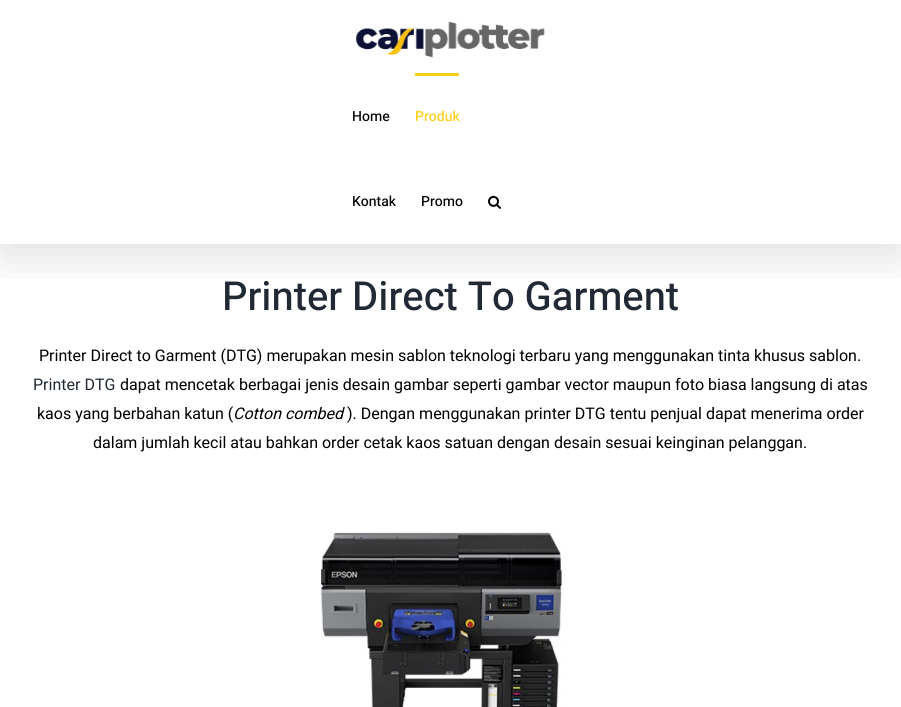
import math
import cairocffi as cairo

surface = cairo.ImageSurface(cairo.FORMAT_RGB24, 901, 707)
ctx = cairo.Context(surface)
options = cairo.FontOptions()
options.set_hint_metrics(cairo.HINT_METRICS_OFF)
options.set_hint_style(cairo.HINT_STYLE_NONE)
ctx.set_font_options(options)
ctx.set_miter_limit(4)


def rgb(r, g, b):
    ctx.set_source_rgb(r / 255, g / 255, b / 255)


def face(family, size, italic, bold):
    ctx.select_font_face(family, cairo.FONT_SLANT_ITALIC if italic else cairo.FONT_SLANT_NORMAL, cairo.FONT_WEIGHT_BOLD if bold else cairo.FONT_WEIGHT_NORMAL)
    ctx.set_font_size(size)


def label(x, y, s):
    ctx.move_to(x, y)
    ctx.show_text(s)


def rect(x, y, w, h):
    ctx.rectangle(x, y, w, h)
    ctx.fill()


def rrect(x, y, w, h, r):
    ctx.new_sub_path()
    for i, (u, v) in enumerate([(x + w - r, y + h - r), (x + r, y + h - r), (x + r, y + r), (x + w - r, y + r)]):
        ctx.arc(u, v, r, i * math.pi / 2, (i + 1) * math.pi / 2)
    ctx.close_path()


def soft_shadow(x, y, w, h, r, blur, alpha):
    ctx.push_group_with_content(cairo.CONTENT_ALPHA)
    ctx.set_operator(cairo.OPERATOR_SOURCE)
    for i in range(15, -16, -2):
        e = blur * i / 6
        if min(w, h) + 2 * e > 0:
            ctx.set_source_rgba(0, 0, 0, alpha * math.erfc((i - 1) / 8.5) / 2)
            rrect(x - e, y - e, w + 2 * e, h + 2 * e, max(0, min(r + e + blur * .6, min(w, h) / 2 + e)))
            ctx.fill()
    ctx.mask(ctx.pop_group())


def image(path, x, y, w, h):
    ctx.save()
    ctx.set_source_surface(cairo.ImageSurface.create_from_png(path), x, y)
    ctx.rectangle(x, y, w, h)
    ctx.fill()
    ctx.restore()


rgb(255, 255, 255)
ctx.paint()
ctx.save()
ctx.rectangle(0, 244, 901, 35)
ctx.clip()
rgb(0, 0, 0)
soft_shadow(2, 12, 897, 240, 0, 25, 0.14)
ctx.restore()
image('image0.png', 356, 21, 189, 37)
face('Heebo Medium', 14, 0, 0)
rgb(0, 0, 0)
label(352, 121, 'Home')
rgb(250, 206, 21)
rect(415, 73, 44, 3)
label(415, 121, 'Produk')
rgb(0, 0, 0)
label(352, 206, 'Kontak')
label(421, 206, 'Promo')
image('image1.png', 488, 195, 13, 14)
face('Heebo Medium', 40, 0, 0)
rgb(33, 41, 52)
label(222, 310, 'Printer Direct To Garment')
face('Heebo', 16, 0, 0)
rgb(0, 0, 0)
label(39, 361, 'Printer Direct to Garment (DTG) merupakan mesin sablon teknologi terbaru yang menggunakan tinta khusus sablon.')
rgb(33, 41, 52)
label(33, 390, 'Printer DTG')
rgb(0, 0, 0)
label(120, 390, 'dapat mencetak berbagai jenis desain gambar seperti gambar vector maupun foto biasa langsung di atas')
label(37, 419, 'kaos yang berbahan katun (')
face('Heebo', 16, 1, 0)
label(233, 419, 'Cotton combed')
face('Heebo', 16, 0, 0)
label(347, 419, '). Dengan menggunakan printer DTG tentu penjual dapat menerima order')
label(93, 448, 'dalam jumlah kecil atau bahkan order cetak kaos satuan dengan desain sesuai keinginan pelanggan.')
image('image2.png', 321, 532, 244, 175)
surface.write_to_png('render.png')
